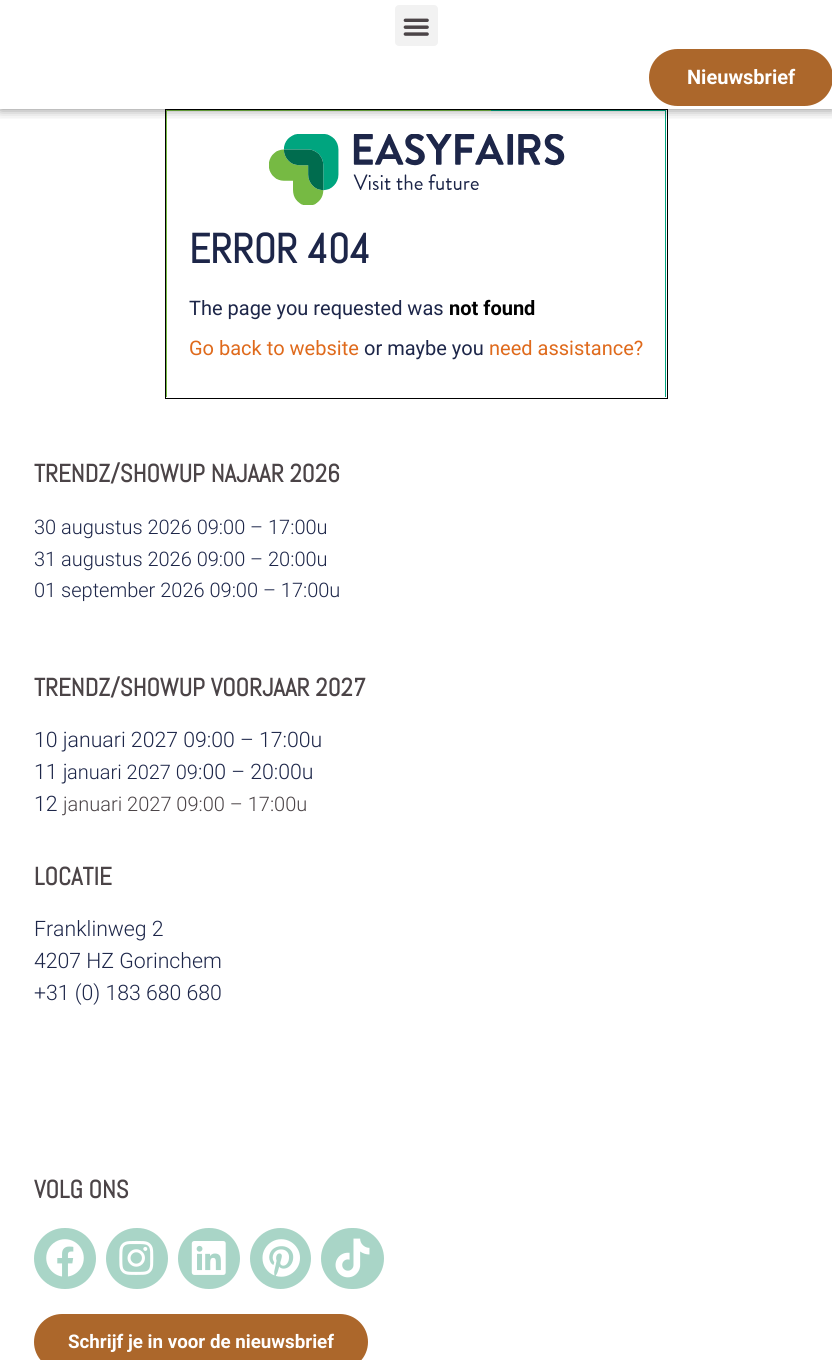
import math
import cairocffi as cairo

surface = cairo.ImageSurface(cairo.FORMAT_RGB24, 832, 1360)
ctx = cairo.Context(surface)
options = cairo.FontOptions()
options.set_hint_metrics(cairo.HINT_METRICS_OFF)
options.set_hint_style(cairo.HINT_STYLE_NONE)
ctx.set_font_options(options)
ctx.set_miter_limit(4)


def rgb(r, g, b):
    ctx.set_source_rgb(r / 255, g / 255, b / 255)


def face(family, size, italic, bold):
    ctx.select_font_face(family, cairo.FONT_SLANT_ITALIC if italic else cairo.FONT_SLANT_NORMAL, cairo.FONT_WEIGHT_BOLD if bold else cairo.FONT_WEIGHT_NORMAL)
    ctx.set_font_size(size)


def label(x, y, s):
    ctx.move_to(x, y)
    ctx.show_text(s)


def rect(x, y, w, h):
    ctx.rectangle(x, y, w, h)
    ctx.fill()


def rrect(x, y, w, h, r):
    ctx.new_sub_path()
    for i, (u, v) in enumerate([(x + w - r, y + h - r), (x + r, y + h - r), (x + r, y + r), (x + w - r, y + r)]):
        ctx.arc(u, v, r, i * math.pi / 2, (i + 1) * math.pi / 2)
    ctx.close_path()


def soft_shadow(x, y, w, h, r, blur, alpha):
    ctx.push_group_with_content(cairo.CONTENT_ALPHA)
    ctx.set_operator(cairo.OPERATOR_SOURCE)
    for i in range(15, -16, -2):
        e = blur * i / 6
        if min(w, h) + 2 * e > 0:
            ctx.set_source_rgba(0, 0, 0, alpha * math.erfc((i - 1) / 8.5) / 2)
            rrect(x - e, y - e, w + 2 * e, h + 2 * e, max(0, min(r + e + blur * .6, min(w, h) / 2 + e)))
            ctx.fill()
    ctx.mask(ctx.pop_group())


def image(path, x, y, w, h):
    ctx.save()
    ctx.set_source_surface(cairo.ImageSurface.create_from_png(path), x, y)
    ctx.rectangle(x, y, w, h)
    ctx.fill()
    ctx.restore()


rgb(255, 255, 255)
ctx.paint()
image('image1.png', 269, 134, 296, 71)
ctx.rectangle(165.5, 109.5, 502, 289)
rgb(0, 0, 0)
ctx.set_line_width(1)
ctx.stroke()
rgb(118, 186, 67)
ctx.new_path()
ctx.move_to(166, 110)
ctx.line_to(166, 397)
ctx.line_to(341, 397)
ctx.line_to(167, 397)
ctx.line_to(167, 111)
ctx.line_to(491, 111)
ctx.line_to(491, 110)
ctx.close_path()
ctx.fill()
rgb(0, 165, 127)
ctx.new_path()
ctx.move_to(491, 110)
ctx.line_to(491, 111)
ctx.line_to(665, 111)
ctx.line_to(665, 397)
ctx.line_to(341, 397)
ctx.line_to(666, 397)
ctx.line_to(666, 110)
ctx.close_path()
ctx.fill()
ctx.save()
ctx.rectangle(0, 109, 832, 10)
ctx.clip()
rgb(0, 0, 0)
soft_shadow(0, 0, 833, 109, 0, 6, 0.5)
ctx.restore()
rgb(255, 255, 255)
rect(0, 108, 832, 1)
rgb(242, 242, 242)
rrect(395, 5, 43, 41, 4)
ctx.fill()
image('image0.png', 403, 18, 26, 18)
rgb(172, 103, 43)
rrect(649, 49, 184, 57, 28.5)
ctx.fill()
face('Roboto', 20, 0, 1)
rgb(255, 255, 255)
label(687, 84, 'Nieuwsbrief')
face('Abel', 41.5, 0, 1)
rgb(29, 38, 73)
label(189, 263, 'ERROR 404')
face('Roboto', 20, 0, 0)
label(189, 315, 'The page you requested was')
face('Roboto', 20, 0, 1)
rgb(0, 0, 0)
label(449, 315, 'not found')
face('Roboto', 20, 0, 0)
rgb(223, 106, 28)
label(189, 355, 'Go back to website')
rgb(29, 38, 73)
label(364, 355, 'or maybe you')
rgb(223, 106, 28)
label(489, 355, 'need assistance?')
face('Abel', 25, 0, 1)
rgb(75, 68, 71)
label(34, 482, 'TRENDZ/SHOWUP NAJAAR 2026')
face('Roboto Light', 20, 0, 0)
rgb(29, 38, 73)
label(34, 534, '30 augustus 2026 09:00 – 17:00u')
label(34, 566, '31 augustus 2026 09:00 – 20:00u')
label(34, 597, '01 september 2026 09:00 – 17:00u')
face('Abel', 25, 0, 1)
rgb(75, 68, 71)
label(34, 696, 'TRENDZ/SHOWUP VOORJAAR 2027')
face('Roboto Light', 21.25, 0, 0)
rgb(29, 38, 73)
label(34, 747, '10 januari 2027 09:00 – 17:00u')
label(34, 779, '11 j')
face('Roboto Light', 20, 0, 0)
label(67, 779, 'anuari 2027 09')
face('Roboto Light', 21.25, 0, 0)
label(198, 779, ':00 – 20:00u')
label(34, 811, '12')
face('Roboto Light', 20, 0, 0)
rgb(75, 68, 71)
label(63, 811, 'januari 2027 09:00 – 17:00u')
face('Abel', 25, 0, 1)
label(34, 885, 'LOCATIE')
face('Roboto Light', 21.25, 0, 0)
rgb(29, 38, 73)
label(34, 936, 'Franklinweg 2')
label(34, 968, '4207 HZ Gorinchem')
label(34, 1000, '+31 (0) 183 680 680')
face('Abel', 25, 0, 1)
rgb(75, 68, 71)
label(34, 1198, 'VOLG ONS')
rgb(169, 213, 199)
rrect(34, 1228, 62, 61, 30.5)
ctx.fill()
image('image2.png', 46, 1239, 38, 38)
rrect(106, 1228, 62, 61, 30.5)
ctx.fill()
image('image3.png', 119, 1240, 35, 35)
rrect(178, 1228, 62, 61, 30.5)
ctx.fill()
image('image4.png', 191, 1241, 35, 34)
ctx.arc(280.5, 1258.5, 30.5, 0, 2 * math.pi)
ctx.fill()
image('image5.png', 262, 1239, 38, 38)
rrect(321, 1228, 63, 61, 30.5)
ctx.fill()
image('image6.png', 335, 1238, 35, 40)
rgb(172, 103, 43)
rrect(36, 1316, 330, 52, 26)
ctx.fill_preserve()
ctx.set_line_width(4)
ctx.stroke()
face('Roboto', 18.75, 0, 1)
rgb(255, 255, 255)
label(68, 1348, 'Schrijf je in voor de nieuwsbrief')
surface.write_to_png('render.png')
